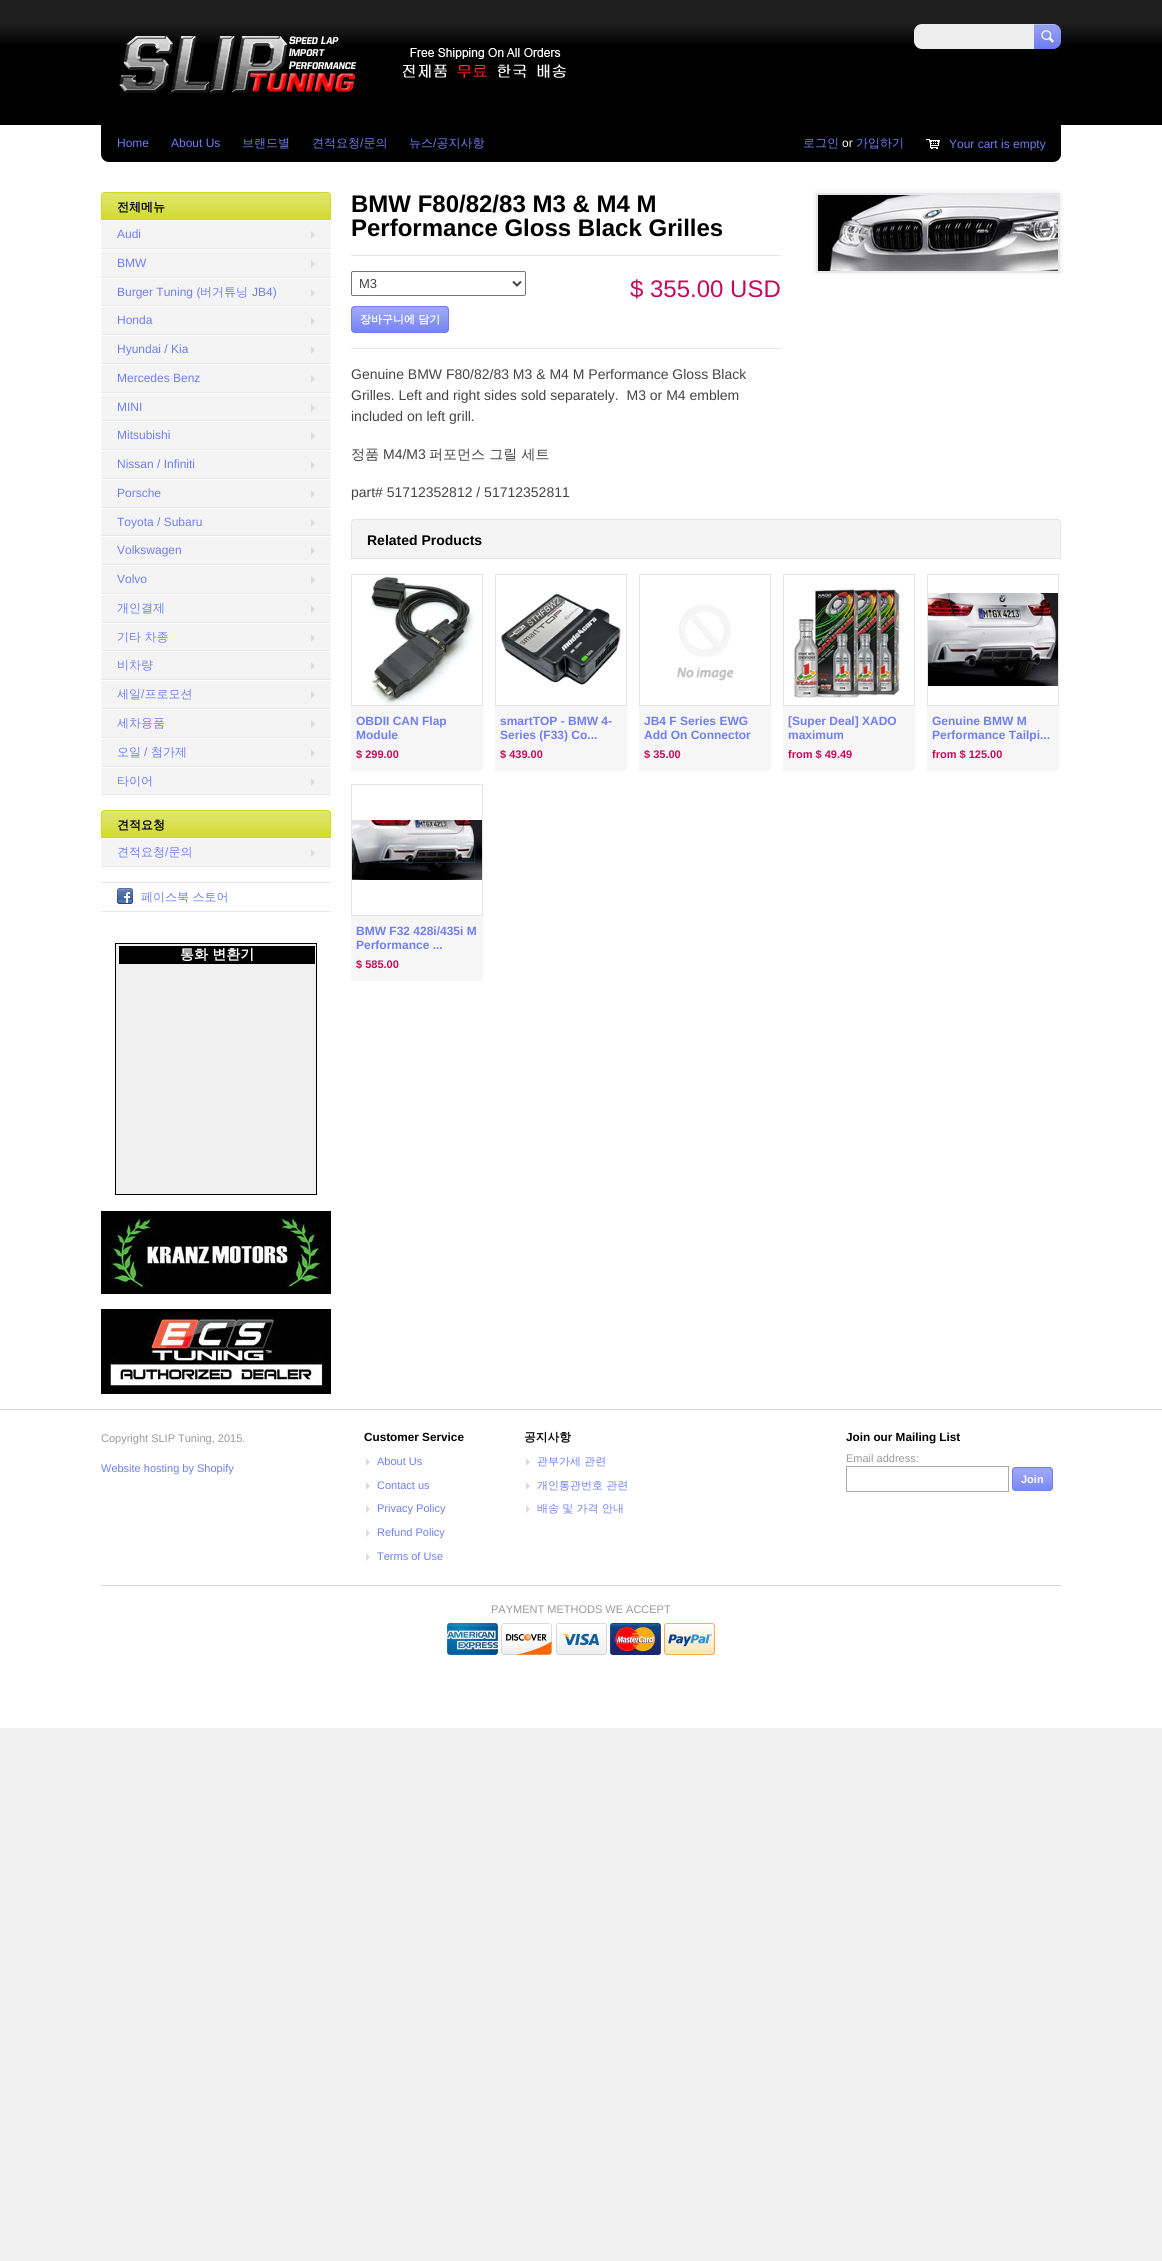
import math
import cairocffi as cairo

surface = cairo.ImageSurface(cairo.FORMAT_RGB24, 1162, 2261)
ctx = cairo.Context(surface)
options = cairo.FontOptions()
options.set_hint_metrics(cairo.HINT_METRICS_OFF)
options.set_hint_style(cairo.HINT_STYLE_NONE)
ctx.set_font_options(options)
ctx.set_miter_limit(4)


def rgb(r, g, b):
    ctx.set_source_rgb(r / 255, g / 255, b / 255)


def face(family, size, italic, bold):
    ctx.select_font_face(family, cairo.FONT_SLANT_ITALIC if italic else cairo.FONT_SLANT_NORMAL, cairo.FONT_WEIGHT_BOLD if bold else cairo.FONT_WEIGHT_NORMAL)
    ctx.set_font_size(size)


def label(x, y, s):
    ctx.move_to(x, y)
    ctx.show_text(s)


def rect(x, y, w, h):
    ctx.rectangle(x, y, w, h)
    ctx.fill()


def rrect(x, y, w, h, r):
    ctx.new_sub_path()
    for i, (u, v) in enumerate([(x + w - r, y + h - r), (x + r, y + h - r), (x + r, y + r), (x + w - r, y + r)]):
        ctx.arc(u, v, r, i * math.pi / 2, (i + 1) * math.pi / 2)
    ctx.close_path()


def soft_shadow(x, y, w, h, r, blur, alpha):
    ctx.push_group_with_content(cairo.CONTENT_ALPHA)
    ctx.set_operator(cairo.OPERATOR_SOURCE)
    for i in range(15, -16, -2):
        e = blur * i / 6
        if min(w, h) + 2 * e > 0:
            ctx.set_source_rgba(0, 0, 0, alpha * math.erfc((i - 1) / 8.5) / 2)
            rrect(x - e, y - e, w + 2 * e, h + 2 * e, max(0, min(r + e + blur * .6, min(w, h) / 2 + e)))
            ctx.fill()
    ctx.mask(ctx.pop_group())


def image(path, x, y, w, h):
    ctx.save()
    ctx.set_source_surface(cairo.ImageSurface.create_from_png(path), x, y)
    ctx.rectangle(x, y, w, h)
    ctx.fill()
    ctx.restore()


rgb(240, 240, 240)
ctx.paint()
rgb(0, 0, 0)
rect(0, 0, 1162, 125)
image('image0.png', 0, 0, 1162, 44)
image('image1.png', 119, 36, 447, 57)
rgb(238, 238, 238)
ctx.new_path()
ctx.move_to(922, 24)
ctx.line_to(1034, 24)
ctx.line_to(1034, 49)
ctx.line_to(922, 49)
ctx.curve_to(917.5, 49, 914, 45.5, 914, 41)
ctx.line_to(914, 32)
ctx.curve_to(914, 27.5, 917.5, 24, 922, 24)
ctx.close_path()
ctx.fill()
rgb(111, 126, 242)
ctx.new_path()
ctx.move_to(1034, 24)
ctx.line_to(1053, 24)
ctx.curve_to(1057.5, 24, 1061, 27.5, 1061, 32)
ctx.line_to(1061, 41)
ctx.curve_to(1061, 45.5, 1057.5, 49, 1053, 49)
ctx.line_to(1034, 49)
ctx.close_path()
ctx.fill()
image('image2.png', 1034, 24, 27, 22)
rgb(255, 255, 255)
rect(0, 125, 1162, 1603)
rgb(0, 0, 0)
ctx.new_path()
ctx.move_to(101, 125)
ctx.line_to(1061, 125)
ctx.line_to(1061, 154)
ctx.curve_to(1061, 158.5, 1057.5, 162, 1053, 162)
ctx.line_to(109, 162)
ctx.curve_to(104.5, 162, 101, 158.5, 101, 154)
ctx.close_path()
ctx.fill()
face('Liberation Sans', 12, 0, 0)
rgb(111, 126, 242)
label(117, 147, 'Home')
label(171, 147, 'About Us')
face('WenQuanYi Zen Hei Medium', 12, 0, 0)
label(242, 147, '브랜드별')
label(312, 147, '견적요청 문의')
face('Liberation Sans', 12, 0, 0)
label(360, 147, '/')
face('WenQuanYi Zen Hei Medium', 12, 0, 0)
label(409, 147, '뉴스 공지사항')
face('Liberation Sans', 12, 0, 0)
label(433, 147, '/')
face('WenQuanYi Zen Hei Medium', 12, 0, 0)
label(803, 147, '로그인')
face('Liberation Sans', 12, 0, 0)
rgb(255, 255, 255)
label(842, 147, 'or')
face('WenQuanYi Zen Hei Medium', 12, 0, 0)
rgb(111, 126, 242)
label(856, 147, '가입하기')
image('image3.png', 925, 139, 16, 10)
face('Liberation Sans', 12, 0, 0)
label(949, 148, 'Your cart is empty')
rgb(208, 217, 39)
ctx.new_path()
ctx.move_to(105, 192)
ctx.line_to(327, 192)
ctx.curve_to(329, 192, 331, 194, 331, 196)
ctx.line_to(331, 220)
ctx.line_to(101, 220)
ctx.line_to(101, 196)
ctx.curve_to(101, 194, 103, 192, 105, 192)
ctx.close_path()
ctx.fill()
image('image4.png', 101, 193, 230, 26)
ctx.new_path()
ctx.move_to(105, 192.5)
ctx.line_to(327, 192.5)
ctx.curve_to(329, 192.5, 330.5, 194, 330.5, 196)
ctx.line_to(330.5, 219.5)
ctx.line_to(101.5, 219.5)
ctx.line_to(101.5, 196)
ctx.curve_to(101.5, 194, 103, 192.5, 105, 192.5)
ctx.close_path()
ctx.set_line_width(1)
ctx.stroke()
face('WenQuanYi Zen Hei', 12, 0, 1)
rgb(0, 0, 0)
label(117, 211, '전체메뉴')
rgb(244, 244, 244)
rect(101, 221, 230, 27)
rgb(232, 232, 232)
rect(101, 248, 230, 1)
face('Liberation Sans', 12, 0, 0)
rgb(111, 126, 242)
label(117, 238, 'Audi')
rgb(219, 219, 219)
ctx.new_path()
ctx.move_to(311, 239)
ctx.line_to(311, 231)
ctx.line_to(315, 235)
ctx.close_path()
ctx.fill()
rgb(244, 244, 244)
rect(101, 250, 230, 27)
rgb(232, 232, 232)
rect(101, 277, 230, 1)
rgb(111, 126, 242)
label(117, 267, 'BMW')
rgb(219, 219, 219)
ctx.new_path()
ctx.move_to(311, 268)
ctx.line_to(311, 260)
ctx.line_to(315, 264)
ctx.close_path()
ctx.fill()
rgb(244, 244, 244)
rect(101, 279, 230, 26)
rgb(232, 232, 232)
rect(101, 305, 230, 1)
rgb(111, 126, 242)
label(117, 296, 'Burger Tuning (')
face('WenQuanYi Zen Hei Medium', 12, 0, 0)
label(200, 296, '버거튜닝')
face('Liberation Sans', 12, 0, 0)
label(252, 296, 'JB4)')
rgb(219, 219, 219)
ctx.new_path()
ctx.move_to(311, 297)
ctx.line_to(311, 289)
ctx.line_to(315, 293)
ctx.close_path()
ctx.fill()
rgb(244, 244, 244)
rect(101, 307, 230, 27)
rgb(232, 232, 232)
rect(101, 334, 230, 1)
rgb(111, 126, 242)
label(117, 324, 'Honda')
rgb(219, 219, 219)
ctx.new_path()
ctx.move_to(311, 325)
ctx.line_to(311, 317)
ctx.line_to(315, 321)
ctx.close_path()
ctx.fill()
rgb(244, 244, 244)
rect(101, 336, 230, 27)
rgb(232, 232, 232)
rect(101, 363, 230, 1)
rgb(111, 126, 242)
label(117, 353, 'Hyundai / Kia')
rgb(219, 219, 219)
ctx.new_path()
ctx.move_to(311, 354)
ctx.line_to(311, 346)
ctx.line_to(315, 350)
ctx.close_path()
ctx.fill()
rgb(244, 244, 244)
rect(101, 365, 230, 27)
rgb(232, 232, 232)
rect(101, 392, 230, 1)
rgb(111, 126, 242)
label(117, 382, 'Mercedes Benz')
rgb(219, 219, 219)
ctx.new_path()
ctx.move_to(311, 383)
ctx.line_to(311, 375)
ctx.line_to(315, 379)
ctx.close_path()
ctx.fill()
rgb(244, 244, 244)
rect(101, 394, 230, 26)
rgb(232, 232, 232)
rect(101, 420, 230, 1)
rgb(111, 126, 242)
label(117, 411, 'MINI')
rgb(219, 219, 219)
ctx.new_path()
ctx.move_to(311, 412)
ctx.line_to(311, 404)
ctx.line_to(315, 408)
ctx.close_path()
ctx.fill()
rgb(244, 244, 244)
rect(101, 422, 230, 27)
rgb(232, 232, 232)
rect(101, 449, 230, 1)
rgb(111, 126, 242)
label(117, 439, 'Mitsubishi')
rgb(219, 219, 219)
ctx.new_path()
ctx.move_to(311, 440)
ctx.line_to(311, 432)
ctx.line_to(315, 436)
ctx.close_path()
ctx.fill()
rgb(244, 244, 244)
rect(101, 451, 230, 27)
rgb(232, 232, 232)
rect(101, 478, 230, 1)
rgb(111, 126, 242)
label(117, 468, 'Nissan / Infiniti')
rgb(219, 219, 219)
ctx.new_path()
ctx.move_to(311, 469)
ctx.line_to(311, 461)
ctx.line_to(315, 465)
ctx.close_path()
ctx.fill()
rgb(244, 244, 244)
rect(101, 480, 230, 27)
rgb(232, 232, 232)
rect(101, 507, 230, 1)
rgb(111, 126, 242)
label(117, 497, 'Porsche')
rgb(219, 219, 219)
ctx.new_path()
ctx.move_to(311, 498)
ctx.line_to(311, 490)
ctx.line_to(315, 494)
ctx.close_path()
ctx.fill()
rgb(244, 244, 244)
rect(101, 509, 230, 26)
rgb(232, 232, 232)
rect(101, 535, 230, 1)
rgb(111, 126, 242)
label(117, 526, 'Toyota / Subaru')
rgb(219, 219, 219)
ctx.new_path()
ctx.move_to(311, 527)
ctx.line_to(311, 519)
ctx.line_to(315, 523)
ctx.close_path()
ctx.fill()
rgb(244, 244, 244)
rect(101, 537, 230, 27)
rgb(232, 232, 232)
rect(101, 564, 230, 1)
rgb(111, 126, 242)
label(117, 554, 'Volkswagen')
rgb(219, 219, 219)
ctx.new_path()
ctx.move_to(311, 555)
ctx.line_to(311, 547)
ctx.line_to(315, 551)
ctx.close_path()
ctx.fill()
rgb(244, 244, 244)
rect(101, 566, 230, 27)
rgb(232, 232, 232)
rect(101, 593, 230, 1)
rgb(111, 126, 242)
label(117, 583, 'Volvo')
rgb(219, 219, 219)
ctx.new_path()
ctx.move_to(311, 584)
ctx.line_to(311, 576)
ctx.line_to(315, 580)
ctx.close_path()
ctx.fill()
rgb(244, 244, 244)
rect(101, 595, 230, 27)
rgb(232, 232, 232)
rect(101, 622, 230, 1)
face('WenQuanYi Zen Hei Medium', 12, 0, 0)
rgb(111, 126, 242)
label(117, 612, '개인결제')
rgb(219, 219, 219)
ctx.new_path()
ctx.move_to(311, 613)
ctx.line_to(311, 605)
ctx.line_to(315, 609)
ctx.close_path()
ctx.fill()
rgb(244, 244, 244)
rect(101, 624, 230, 26)
rgb(232, 232, 232)
rect(101, 650, 230, 1)
rgb(111, 126, 242)
label(117, 641, '기타 차종')
rgb(219, 219, 219)
ctx.new_path()
ctx.move_to(311, 642)
ctx.line_to(311, 634)
ctx.line_to(315, 638)
ctx.close_path()
ctx.fill()
rgb(244, 244, 244)
rect(101, 652, 230, 27)
rgb(232, 232, 232)
rect(101, 679, 230, 1)
rgb(111, 126, 242)
label(117, 669, '비차량')
rgb(219, 219, 219)
ctx.new_path()
ctx.move_to(311, 670)
ctx.line_to(311, 662)
ctx.line_to(315, 666)
ctx.close_path()
ctx.fill()
rgb(244, 244, 244)
rect(101, 681, 230, 27)
rgb(232, 232, 232)
rect(101, 708, 230, 1)
rgb(111, 126, 242)
label(117, 698, '세일 프로모션')
face('Liberation Sans', 12, 0, 0)
label(141, 698, '/')
rgb(219, 219, 219)
ctx.new_path()
ctx.move_to(311, 699)
ctx.line_to(311, 691)
ctx.line_to(315, 695)
ctx.close_path()
ctx.fill()
rgb(244, 244, 244)
rect(101, 710, 230, 27)
rgb(232, 232, 232)
rect(101, 737, 230, 1)
face('WenQuanYi Zen Hei Medium', 12, 0, 0)
rgb(111, 126, 242)
label(117, 727, '세차용품')
rgb(219, 219, 219)
ctx.new_path()
ctx.move_to(311, 728)
ctx.line_to(311, 720)
ctx.line_to(315, 724)
ctx.close_path()
ctx.fill()
rgb(244, 244, 244)
rect(101, 739, 230, 27)
rgb(232, 232, 232)
rect(101, 766, 230, 1)
rgb(111, 126, 242)
label(117, 756, '오일')
face('Liberation Sans', 12, 0, 0)
label(144, 756, '/')
face('WenQuanYi Zen Hei Medium', 12, 0, 0)
label(151, 756, '첨가제')
rgb(219, 219, 219)
ctx.new_path()
ctx.move_to(311, 757)
ctx.line_to(311, 749)
ctx.line_to(315, 753)
ctx.close_path()
ctx.fill()
rgb(244, 244, 244)
rect(101, 768, 230, 26)
rgb(232, 232, 232)
rect(101, 794, 230, 1)
rgb(111, 126, 242)
label(117, 785, '타이어')
rgb(219, 219, 219)
ctx.new_path()
ctx.move_to(311, 786)
ctx.line_to(311, 778)
ctx.line_to(315, 782)
ctx.close_path()
ctx.fill()
rgb(208, 217, 39)
ctx.new_path()
ctx.move_to(105, 810)
ctx.line_to(327, 810)
ctx.curve_to(329, 810, 331, 812, 331, 814)
ctx.line_to(331, 838)
ctx.line_to(101, 838)
ctx.line_to(101, 814)
ctx.curve_to(101, 812, 103, 810, 105, 810)
ctx.close_path()
ctx.fill()
image('image4.png', 101, 811, 230, 26)
ctx.new_path()
ctx.move_to(105, 810.5)
ctx.line_to(327, 810.5)
ctx.curve_to(329, 810.5, 330.5, 812, 330.5, 814)
ctx.line_to(330.5, 837.5)
ctx.line_to(101.5, 837.5)
ctx.line_to(101.5, 814)
ctx.curve_to(101.5, 812, 103, 810.5, 105, 810.5)
ctx.close_path()
ctx.stroke()
face('WenQuanYi Zen Hei', 12, 0, 1)
rgb(0, 0, 0)
label(117, 829, '견적요청')
rgb(244, 244, 244)
rect(101, 839, 230, 27)
rgb(232, 232, 232)
rect(101, 866, 230, 1)
face('WenQuanYi Zen Hei Medium', 12, 0, 0)
rgb(111, 126, 242)
label(117, 856, '견적요청 문의')
face('Liberation Sans', 12, 0, 0)
label(165, 856, '/')
rgb(219, 219, 219)
ctx.new_path()
ctx.move_to(311, 857)
ctx.line_to(311, 849)
ctx.line_to(315, 853)
ctx.close_path()
ctx.fill()
rgb(232, 232, 232)
rect(101, 882, 230, 1)
image('image5.png', 117, 888, 16, 16)
rect(101, 911, 230, 1)
face('WenQuanYi Zen Hei Medium', 12, 0, 0)
rgb(111, 126, 242)
label(141, 901, '페이스북 스토어')
rgb(240, 240, 240)
ctx.rectangle(115.5, 943.5, 201, 251)
ctx.fill_preserve()
rgb(0, 0, 0)
ctx.stroke()
rect(119, 946, 196, 18)
face('WenQuanYi Zen Hei', 14, 0, 1)
rgb(255, 255, 255)
label(180, 959, '통화 변환기')
image('image6.png', 101, 1211, 230, 83)
image('image7.png', 101, 1309, 230, 85)
rgb(230, 230, 230)
rect(351, 255, 430, 1)
face('Liberation Sans', 24, 0, 1)
rgb(0, 0, 0)
label(351, 212, 'BMW F80/82/83 M3 & M4 M')
label(351, 236, 'Performance Gloss Black Grilles')
rgb(230, 230, 230)
rect(351, 348, 430, 1)
rrect(351.5, 271.5, 174, 24, 1.5)
rgb(118, 118, 118)
ctx.stroke()
ctx.new_path()
ctx.move_to(513, 281.5)
ctx.line_to(517, 285.5)
ctx.line_to(521, 281.5)
rgb(68, 68, 68)
ctx.set_line_width(2)
ctx.stroke()
face('Liberation Sans', 13, 0, 0)
label(359, 288, 'M3')
rgb(111, 126, 242)
rrect(351, 306, 98, 27, 4)
ctx.fill()
image('image8.png', 351, 307, 98, 26)
rrect(351.5, 306.5, 97, 26, 3.5)
ctx.set_line_width(1)
ctx.stroke()
face('WenQuanYi Zen Hei', 11, 0, 1)
rgb(255, 255, 255)
label(360, 323, '장바구니에 담기')
face('Liberation Sans', 24, 0, 0)
rgb(199, 10, 92)
label(630, 297, '$ 355.00 USD')
face('Liberation Sans', 14, 0, 0)
rgb(68, 68, 68)
label(351, 379, 'Genuine BMW F80/82/83 M3 & M4 M Performance Gloss Black')
label(351, 400, 'Grilles. Left and right sides sold separately.  M3 or M4 emblem')
label(351, 421, 'included on left grill.')
face('WenQuanYi Zen Hei Medium', 14, 0, 0)
label(351, 459, '정품')
face('Liberation Sans', 14, 0, 0)
label(383, 459, 'M4/M3')
face('WenQuanYi Zen Hei Medium', 14, 0, 0)
label(429, 459, '퍼포먼스 그릴 세트')
face('Liberation Sans', 14, 0, 0)
label(351, 497, 'part# 51712352812 / 51712352811')
rgb(0, 0, 0)
soft_shadow(816, 193, 244, 80, 0, 2.5, 0.1)
ctx.rectangle(817, 194, 242, 78)
rgb(230, 230, 230)
ctx.set_line_width(2)
ctx.stroke()
image('image9.png', 818, 195, 240, 76)
rgb(244, 244, 244)
ctx.new_path()
ctx.move_to(355, 519.5)
ctx.line_to(1057, 519.5)
ctx.curve_to(1059, 519.5, 1060.5, 521, 1060.5, 523)
ctx.line_to(1060.5, 558.5)
ctx.line_to(351.5, 558.5)
ctx.line_to(351.5, 523)
ctx.curve_to(351.5, 521, 353, 519.5, 355, 519.5)
ctx.close_path()
ctx.fill_preserve()
rgb(228, 228, 228)
ctx.set_line_width(1)
ctx.stroke()
face('Liberation Sans', 14, 0, 1)
rgb(0, 0, 0)
label(367, 545, 'Related Products')
ctx.rectangle(351.5, 574.5, 131, 131)
rgb(228, 228, 228)
ctx.stroke()
image('image10.png', 371, 576, 104, 129)
rgb(246, 246, 246)
rect(351, 706, 132, 65)
face('Liberation Sans', 12, 0, 1)
rgb(111, 126, 242)
label(356, 725, 'OBDII CAN Flap')
label(356, 739, 'Module')
face('Liberation Sans', 11, 0, 1)
rgb(199, 10, 92)
label(356, 758, '$ 299.00')
ctx.rectangle(495.5, 574.5, 131, 131)
rgb(228, 228, 228)
ctx.stroke()
image('image11.png', 501, 593, 120, 92)
rgb(246, 246, 246)
rect(495, 706, 132, 65)
face('Liberation Sans', 12, 0, 1)
rgb(111, 126, 242)
label(500, 725, 'smartTOP - BMW 4-')
label(500, 739, 'Series (F33) Co...')
face('Liberation Sans', 11, 0, 1)
rgb(199, 10, 92)
label(500, 758, '$ 439.00')
ctx.rectangle(639.5, 574.5, 131, 131)
rgb(228, 228, 228)
ctx.stroke()
image('image12.png', 676, 604, 58, 77)
rgb(246, 246, 246)
rect(639, 706, 132, 65)
face('Liberation Sans', 12, 0, 1)
rgb(111, 126, 242)
label(644, 725, 'JB4 F Series EWG')
label(644, 739, 'Add On Connector')
face('Liberation Sans', 11, 0, 1)
rgb(199, 10, 92)
label(644, 758, '$ 35.00')
ctx.rectangle(783.5, 574.5, 131, 131)
rgb(228, 228, 228)
ctx.stroke()
image('image13.png', 793, 588, 108, 110)
rgb(246, 246, 246)
rect(783, 706, 132, 65)
face('Liberation Sans', 12, 0, 1)
rgb(111, 126, 242)
label(788, 725, '[Super Deal] XADO')
label(788, 739, 'maximum')
face('Liberation Sans', 11, 0, 1)
rgb(199, 10, 92)
label(788, 758, 'from $ 49.49')
ctx.rectangle(927.5, 574.5, 131, 131)
rgb(228, 228, 228)
ctx.stroke()
image('image14.png', 928, 593, 130, 93)
rgb(246, 246, 246)
rect(927, 706, 132, 65)
face('Liberation Sans', 12, 0, 1)
rgb(111, 126, 242)
label(932, 725, 'Genuine BMW M')
label(932, 739, 'Performance Tailpi...')
face('Liberation Sans', 11, 0, 1)
rgb(199, 10, 92)
label(932, 758, 'from $ 125.00')
ctx.rectangle(351.5, 784.5, 131, 131)
rgb(228, 228, 228)
ctx.stroke()
image('image15.png', 352, 820, 130, 60)
rgb(246, 246, 246)
rect(351, 916, 132, 65)
face('Liberation Sans', 12, 0, 1)
rgb(111, 126, 242)
label(356, 935, 'BMW F32 428i/435i M')
label(356, 949, 'Performance ...')
face('Liberation Sans', 11, 0, 1)
rgb(199, 10, 92)
label(356, 968, '$ 585.00')
rgb(215, 215, 215)
rect(0, 1409, 1162, 1)
face('Liberation Sans', 11, 0, 0)
rgb(153, 153, 153)
label(101, 1442, 'Copyright SLIP Tuning, 2015.')
rgb(111, 126, 242)
label(101, 1472, 'Website hosting by Shopify')
face('Liberation Sans', 11.75, 0, 1)
rgb(0, 0, 0)
label(364, 1441, 'Customer Service')
rgb(219, 219, 219)
ctx.new_path()
ctx.move_to(366, 1466)
ctx.line_to(366, 1458)
ctx.line_to(370, 1462)
ctx.close_path()
ctx.fill()
face('Liberation Sans', 11, 0, 0)
rgb(111, 126, 242)
label(377, 1465, 'About Us')
rgb(219, 219, 219)
ctx.new_path()
ctx.move_to(366, 1490)
ctx.line_to(366, 1482)
ctx.line_to(370, 1486)
ctx.close_path()
ctx.fill()
rgb(111, 126, 242)
label(377, 1489, 'Contact us')
rgb(219, 219, 219)
ctx.new_path()
ctx.move_to(366, 1513)
ctx.line_to(366, 1505)
ctx.line_to(370, 1509)
ctx.close_path()
ctx.fill()
rgb(111, 126, 242)
label(377, 1512, 'Privacy Policy')
rgb(219, 219, 219)
ctx.new_path()
ctx.move_to(366, 1537)
ctx.line_to(366, 1529)
ctx.line_to(370, 1533)
ctx.close_path()
ctx.fill()
rgb(111, 126, 242)
label(377, 1536, 'Refund Policy')
rgb(219, 219, 219)
ctx.new_path()
ctx.move_to(366, 1561)
ctx.line_to(366, 1553)
ctx.line_to(370, 1557)
ctx.close_path()
ctx.fill()
rgb(111, 126, 242)
label(377, 1560, 'Terms of Use')
face('WenQuanYi Zen Hei', 11.75, 0, 1)
rgb(0, 0, 0)
label(524, 1441, '공지사항')
rgb(219, 219, 219)
ctx.new_path()
ctx.move_to(526, 1466)
ctx.line_to(526, 1458)
ctx.line_to(530, 1462)
ctx.close_path()
ctx.fill()
face('WenQuanYi Zen Hei Medium', 11, 0, 0)
rgb(111, 126, 242)
label(537, 1465, '관부가세 관련')
rgb(219, 219, 219)
ctx.new_path()
ctx.move_to(526, 1490)
ctx.line_to(526, 1482)
ctx.line_to(530, 1486)
ctx.close_path()
ctx.fill()
rgb(111, 126, 242)
label(537, 1489, '개인통관번호 관련')
rgb(219, 219, 219)
ctx.new_path()
ctx.move_to(526, 1513)
ctx.line_to(526, 1505)
ctx.line_to(530, 1509)
ctx.close_path()
ctx.fill()
rgb(111, 126, 242)
label(537, 1512, '배송 및 가격 안내')
face('Liberation Sans', 11.75, 0, 1)
rgb(0, 0, 0)
label(846, 1441, 'Join our Mailing List')
face('Liberation Sans', 11, 0, 0)
rgb(153, 153, 153)
label(846, 1462, 'Email address:')
ctx.rectangle(846.5, 1466.5, 162, 25)
rgb(170, 170, 170)
ctx.stroke()
rgb(111, 126, 242)
rrect(1012, 1467, 41, 24, 4)
ctx.fill()
image('image16.png', 1012, 1468, 41, 23)
rrect(1012.5, 1467.5, 40, 23, 3.5)
ctx.stroke()
face('Liberation Sans', 11, 0, 1)
rgb(255, 255, 255)
label(1021, 1483, 'Join')
rgb(215, 215, 215)
rect(101, 1585, 960, 1)
face('Liberation Sans', 11, 0, 0)
rgb(153, 153, 153)
label(491, 1613, 'PAYMENT METHODS WE ACCEPT')
image('image17.png', 447, 1623, 51, 32)
image('image18.png', 501, 1623, 51, 32)
image('image19.png', 556, 1623, 51, 32)
image('image20.png', 610, 1623, 51, 32)
image('image21.png', 664, 1623, 51, 32)
surface.write_to_png('render.png')
